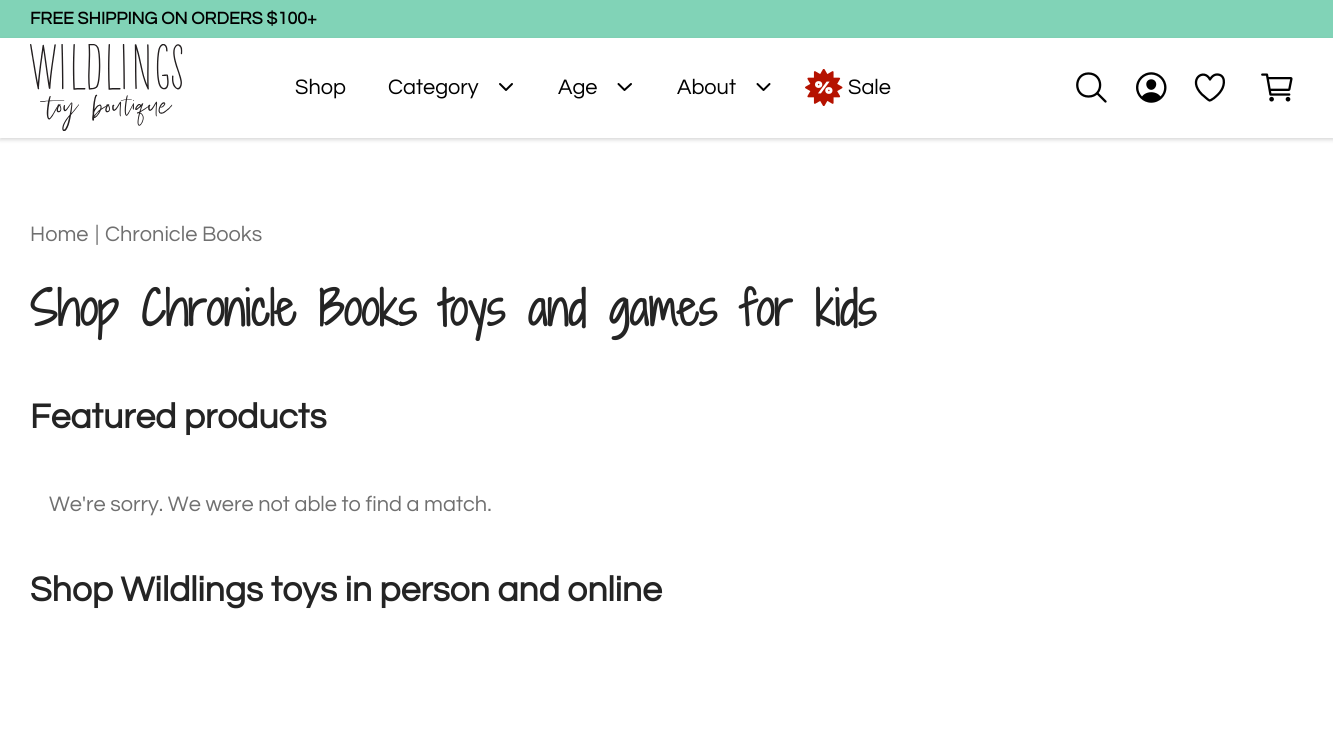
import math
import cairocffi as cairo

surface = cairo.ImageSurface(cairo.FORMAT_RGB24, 1333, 731)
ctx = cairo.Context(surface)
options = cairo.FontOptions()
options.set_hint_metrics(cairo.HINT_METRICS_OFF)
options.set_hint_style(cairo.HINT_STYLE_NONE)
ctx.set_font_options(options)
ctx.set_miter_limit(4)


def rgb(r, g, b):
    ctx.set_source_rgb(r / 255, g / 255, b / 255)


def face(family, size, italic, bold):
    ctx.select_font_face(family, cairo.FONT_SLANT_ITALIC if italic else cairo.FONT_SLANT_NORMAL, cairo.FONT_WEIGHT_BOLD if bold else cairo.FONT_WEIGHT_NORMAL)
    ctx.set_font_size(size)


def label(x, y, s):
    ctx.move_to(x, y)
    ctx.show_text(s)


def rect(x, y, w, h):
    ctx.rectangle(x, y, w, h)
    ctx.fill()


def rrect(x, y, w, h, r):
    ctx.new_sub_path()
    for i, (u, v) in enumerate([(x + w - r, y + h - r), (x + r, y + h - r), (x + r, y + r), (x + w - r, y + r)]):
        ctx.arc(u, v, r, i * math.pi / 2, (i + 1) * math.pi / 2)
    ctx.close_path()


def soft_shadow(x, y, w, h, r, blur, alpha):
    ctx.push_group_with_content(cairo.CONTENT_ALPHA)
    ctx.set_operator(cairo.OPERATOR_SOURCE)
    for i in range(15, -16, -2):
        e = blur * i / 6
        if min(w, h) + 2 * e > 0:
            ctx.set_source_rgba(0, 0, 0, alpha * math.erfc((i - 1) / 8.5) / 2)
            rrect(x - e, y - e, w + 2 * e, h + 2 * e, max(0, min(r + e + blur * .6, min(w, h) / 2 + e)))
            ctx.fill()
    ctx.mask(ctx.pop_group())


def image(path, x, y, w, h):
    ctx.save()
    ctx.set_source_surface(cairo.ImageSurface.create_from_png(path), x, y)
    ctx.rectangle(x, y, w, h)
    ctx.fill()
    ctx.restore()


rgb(255, 255, 255)
ctx.paint()
rgb(129, 211, 183)
rect(0, 0, 1333, 38)
face('Questrial', 17.75, 0, 1)
rgb(0, 0, 0)
label(30, 24, 'FREE SHIPPING ON ORDERS $100+')
rgb(0, 0, 0)
soft_shadow(0, 40, 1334, 100, 0, 2, 0.15)
rgb(255, 255, 255)
rect(0, 38, 1333, 100)
image('image0.png', 30, 44, 153, 87)
face('Questrial', 21.75, 0, 0)
rgb(0, 0, 0)
label(295, 94, 'Shop')
label(388, 94, 'Category')
ctx.new_path()
ctx.move_to(500, 84)
ctx.line_to(506, 90)
ctx.line_to(512, 84)
ctx.set_line_cap(cairo.LINE_CAP_ROUND)
ctx.set_line_join(cairo.LINE_JOIN_ROUND)
ctx.stroke()
label(558, 94, 'Age')
ctx.new_path()
ctx.move_to(618.5, 84)
ctx.line_to(624.5, 90)
ctx.line_to(631, 84)
ctx.stroke()
label(677, 94, 'About')
ctx.new_path()
ctx.move_to(757.5, 84)
ctx.line_to(763.5, 90)
ctx.line_to(769.5, 84)
ctx.stroke()
image('image1.png', 805, 69, 38, 37)
label(848, 94, 'Sale')
ctx.new_path()
ctx.move_to(1088.5, 73.5)
ctx.curve_to(1073.5, 73.5, 1073.5, 96.5, 1088.5, 96.5)
ctx.curve_to(1104, 96.5, 1104, 73.5, 1088.5, 73.5)
ctx.close_path()
ctx.set_line_width(2.3)
ctx.set_line_cap(cairo.LINE_CAP_BUTT)
ctx.set_line_join(cairo.LINE_JOIN_MITER)
ctx.stroke()
ctx.new_path()
ctx.move_to(1097.5, 93.5)
ctx.line_to(1105.5, 101.5)
ctx.set_line_cap(cairo.LINE_CAP_ROUND)
ctx.stroke()
image('image2.png', 1136, 72, 31, 31)
ctx.new_path()
ctx.move_to(1217, 74.5)
ctx.curve_to(1212.5, 74.5, 1210, 79.5, 1210, 79.5)
ctx.curve_to(1204, 67.5, 1187, 79.5, 1202, 94.5)
ctx.curve_to(1203.5, 95.5, 1208, 100, 1209.5, 100.5)
ctx.curve_to(1211, 100.5, 1213, 98.5, 1213.5, 98.5)
ctx.curve_to(1216.5, 96, 1219.5, 93.5, 1221.5, 90)
ctx.curve_to(1225, 84.5, 1225.5, 74.5, 1217, 74.5)
ctx.close_path()
ctx.set_line_join(cairo.LINE_JOIN_ROUND)
ctx.stroke()
image('image3.png', 1261, 73, 32, 29)
rgb(112, 112, 112)
label(30, 241, 'Home')
label(95, 241, '|')
label(105, 241, 'Chronicle Books')
face('Shadows Into Light Two', 45.7, 0, 1)
rgb(36, 36, 36)
label(30, 326, 'Shop Chronicle Books toys and games for kids')
face('Questrial', 35.5, 0, 1)
label(30, 428, 'Featured products')
face('Questrial', 21.75, 0, 0)
rgb(112, 112, 112)
label(49, 511, 'We\'re sorry. We were not able to find a match.')
face('Questrial', 35.5, 0, 1)
rgb(36, 36, 36)
label(30, 601, 'Shop Wildlings toys in person and online')
surface.write_to_png('render.png')
